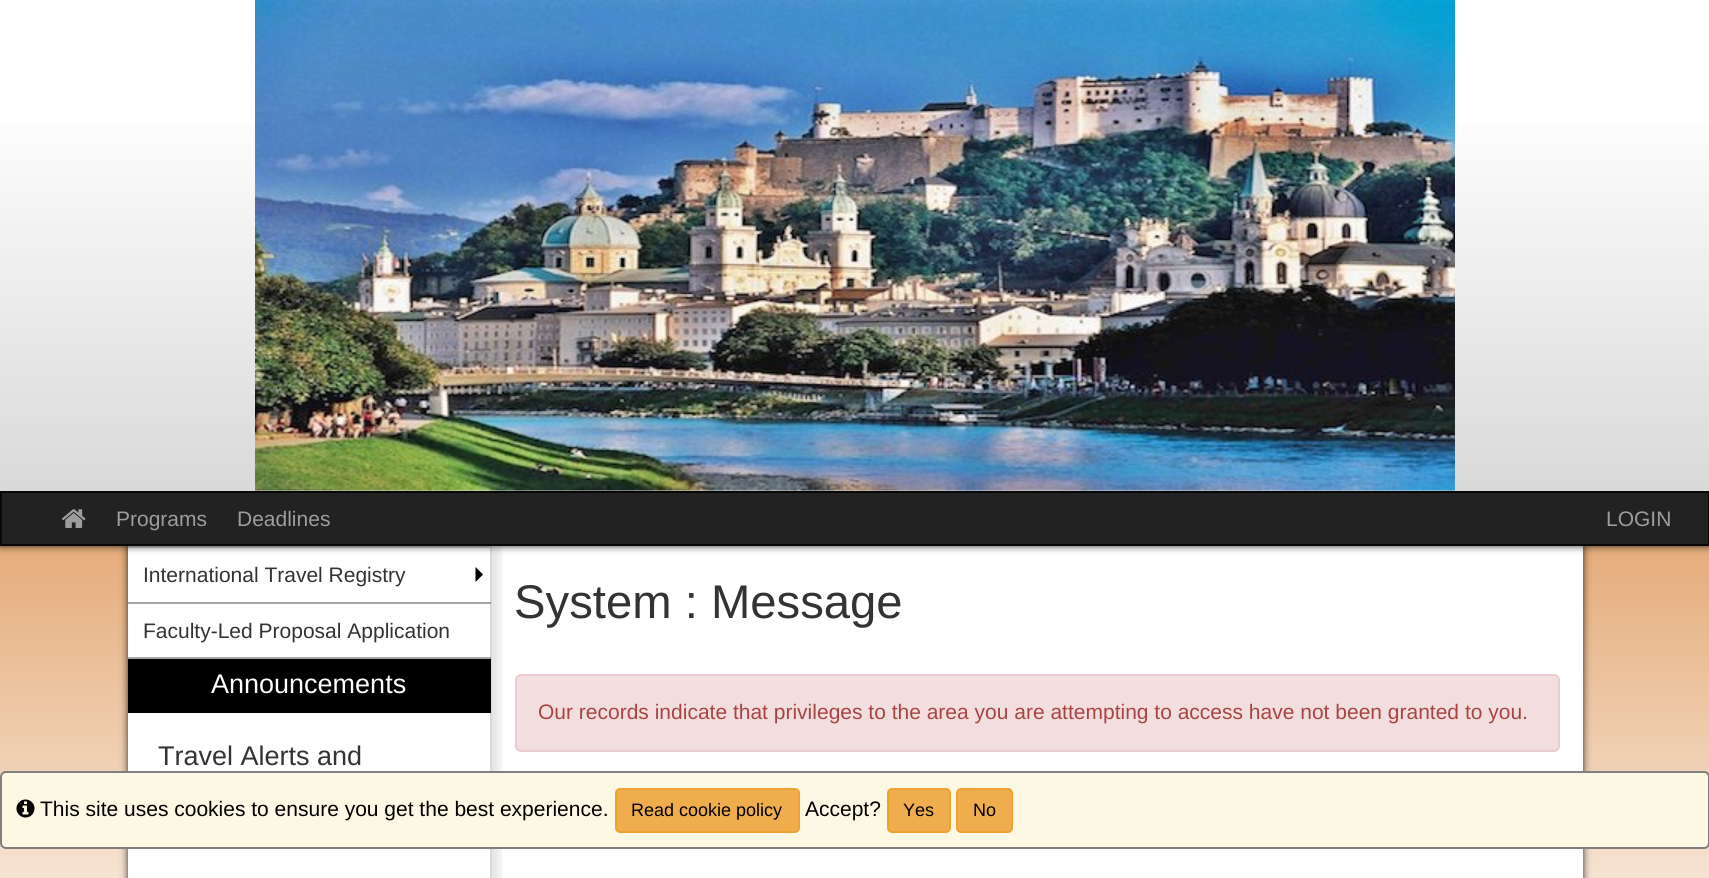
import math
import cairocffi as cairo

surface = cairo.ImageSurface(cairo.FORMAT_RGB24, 1709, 878)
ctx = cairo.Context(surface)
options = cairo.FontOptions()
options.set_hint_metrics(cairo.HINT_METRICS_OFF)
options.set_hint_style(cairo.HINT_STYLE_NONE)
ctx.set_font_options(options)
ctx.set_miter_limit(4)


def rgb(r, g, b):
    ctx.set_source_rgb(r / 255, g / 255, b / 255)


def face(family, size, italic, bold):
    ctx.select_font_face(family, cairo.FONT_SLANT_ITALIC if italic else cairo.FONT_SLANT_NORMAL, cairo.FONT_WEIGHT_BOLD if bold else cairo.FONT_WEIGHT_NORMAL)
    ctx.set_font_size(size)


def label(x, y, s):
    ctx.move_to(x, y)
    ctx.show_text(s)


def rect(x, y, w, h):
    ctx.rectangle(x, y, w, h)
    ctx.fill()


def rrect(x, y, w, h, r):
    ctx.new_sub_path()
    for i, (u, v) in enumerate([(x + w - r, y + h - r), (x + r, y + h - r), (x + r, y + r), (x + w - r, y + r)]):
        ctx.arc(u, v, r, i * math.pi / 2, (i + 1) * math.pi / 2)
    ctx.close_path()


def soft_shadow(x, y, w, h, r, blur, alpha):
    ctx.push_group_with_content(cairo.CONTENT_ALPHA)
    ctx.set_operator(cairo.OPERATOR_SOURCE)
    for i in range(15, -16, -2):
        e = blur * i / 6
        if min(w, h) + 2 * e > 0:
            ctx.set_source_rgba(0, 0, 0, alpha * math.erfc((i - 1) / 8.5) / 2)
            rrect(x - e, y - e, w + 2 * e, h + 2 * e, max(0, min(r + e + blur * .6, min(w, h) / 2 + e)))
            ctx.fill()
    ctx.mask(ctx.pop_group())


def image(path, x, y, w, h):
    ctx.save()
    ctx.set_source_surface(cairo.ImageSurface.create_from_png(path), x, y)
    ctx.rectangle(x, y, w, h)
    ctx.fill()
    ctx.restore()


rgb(255, 255, 255)
ctx.paint()
gradient = cairo.LinearGradient(855, 0, 855, 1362)
gradient.add_color_stop_rgba(0.06, 0.804, 0.376, 0, 1)
gradient.add_color_stop_rgba(0.77, 1, 1, 1, 1)
ctx.set_source(gradient)
rect(0, 546, 1709, 332)
rgb(0, 0, 0)
soft_shadow(128, 546, 1455, 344, 0, 4, 0.8)
rgb(255, 255, 255)
rect(128, 546, 1455, 332)
ctx.save()
ctx.rectangle(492, 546, 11, 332)
ctx.clip()
rgb(0, 0, 0)
soft_shadow(135, 546, 365, 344, 0, 4, 0.1)
ctx.restore()
rgb(217, 217, 217)
ctx.new_path()
ctx.move_to(128, 546)
ctx.line_to(492, 546)
ctx.line_to(490, 548)
ctx.line_to(128, 548)
ctx.close_path()
ctx.fill()
ctx.set_source_rgba(0, 0, 0, 0.15)
ctx.new_path()
ctx.move_to(492, 546)
ctx.line_to(492, 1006)
ctx.line_to(490, 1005)
ctx.line_to(490, 548)
ctx.close_path()
ctx.fill()
rgb(0, 0, 0)
soft_shadow(0, 491, 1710, 55, 0, 4, 0.8)
gradient = cairo.LinearGradient(855, 0, 855, 491)
gradient.add_color_stop_rgba(0.2, 1, 1, 1, 1)
gradient.add_color_stop_rgba(1, 0.851, 0.851, 0.851, 1)
ctx.set_source(gradient)
rect(0, 124, 1709, 367)
image('image0.png', 255, 0, 1200, 491)
rgb(34, 34, 34)
ctx.rectangle(1, 492, 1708, 53)
ctx.fill_preserve()
rgb(8, 8, 8)
ctx.stroke()
image('image1.png', 61, 509, 25, 19)
face('Liberation Sans', 21, 0, 0)
rgb(157, 157, 157)
label(116, 526, 'Programs')
label(237, 526, 'Deadlines')
label(1606, 526, 'LOGIN')
ctx.set_source_rgba(0, 0, 0, 0.35)
rect(128, 602, 363, 2)
rgb(51, 51, 51)
label(143, 582, 'International Travel Registry')
rgb(0, 0, 0)
ctx.new_path()
ctx.move_to(475.5, 582)
ctx.line_to(475.5, 567)
ctx.line_to(483, 574.5)
ctx.close_path()
ctx.fill()
ctx.set_source_rgba(0, 0, 0, 0.35)
rect(128, 657, 363, 2)
rgb(51, 51, 51)
label(143, 638, 'Faculty-Led Proposal Application')
rgb(0, 0, 0)
rect(128, 659, 363, 54)
face('Liberation Sans', 27, 0, 0)
rgb(255, 255, 255)
label(211, 693, 'Announcements')
rgb(51, 51, 51)
label(158, 765, 'Travel Alerts and')
face('Liberation Sans', 47.25, 0, 0)
label(514, 618, 'System : Message')
rgb(242, 222, 222)
rrect(516, 675, 1043, 76, 5)
ctx.fill_preserve()
rgb(235, 204, 209)
ctx.stroke()
face('Liberation Sans', 21, 0, 0)
rgb(169, 68, 66)
label(538, 719, 'Our records indicate that privileges to the area you are attempting to access have not been granted to you.')
rgb(252, 248, 227)
rrect(1, 772, 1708, 76, 5)
ctx.fill_preserve()
rgb(128, 128, 128)
ctx.stroke()
image('image2.png', 16, 799, 19, 19)
rgb(0, 0, 0)
label(40, 816, 'This site uses cookies to ensure you get the best experience.')
rgb(240, 173, 78)
rrect(616, 789, 183, 43, 4)
ctx.fill_preserve()
rgb(238, 162, 54)
ctx.stroke()
face('Liberation Sans', 18, 0, 0)
rgb(0, 0, 0)
label(631, 816, 'Read cookie policy')
face('Liberation Sans', 21, 0, 0)
label(805, 816, 'Accept?')
rgb(240, 173, 78)
rrect(888, 789, 62, 43, 4)
ctx.fill_preserve()
rgb(238, 162, 54)
ctx.stroke()
face('Liberation Sans', 18, 0, 0)
rgb(0, 0, 0)
label(903, 816, 'Yes')
rgb(240, 173, 78)
rrect(957, 789, 55, 43, 4)
ctx.fill_preserve()
rgb(238, 162, 54)
ctx.stroke()
rgb(0, 0, 0)
label(973, 816, 'No')
surface.write_to_png('render.png')
